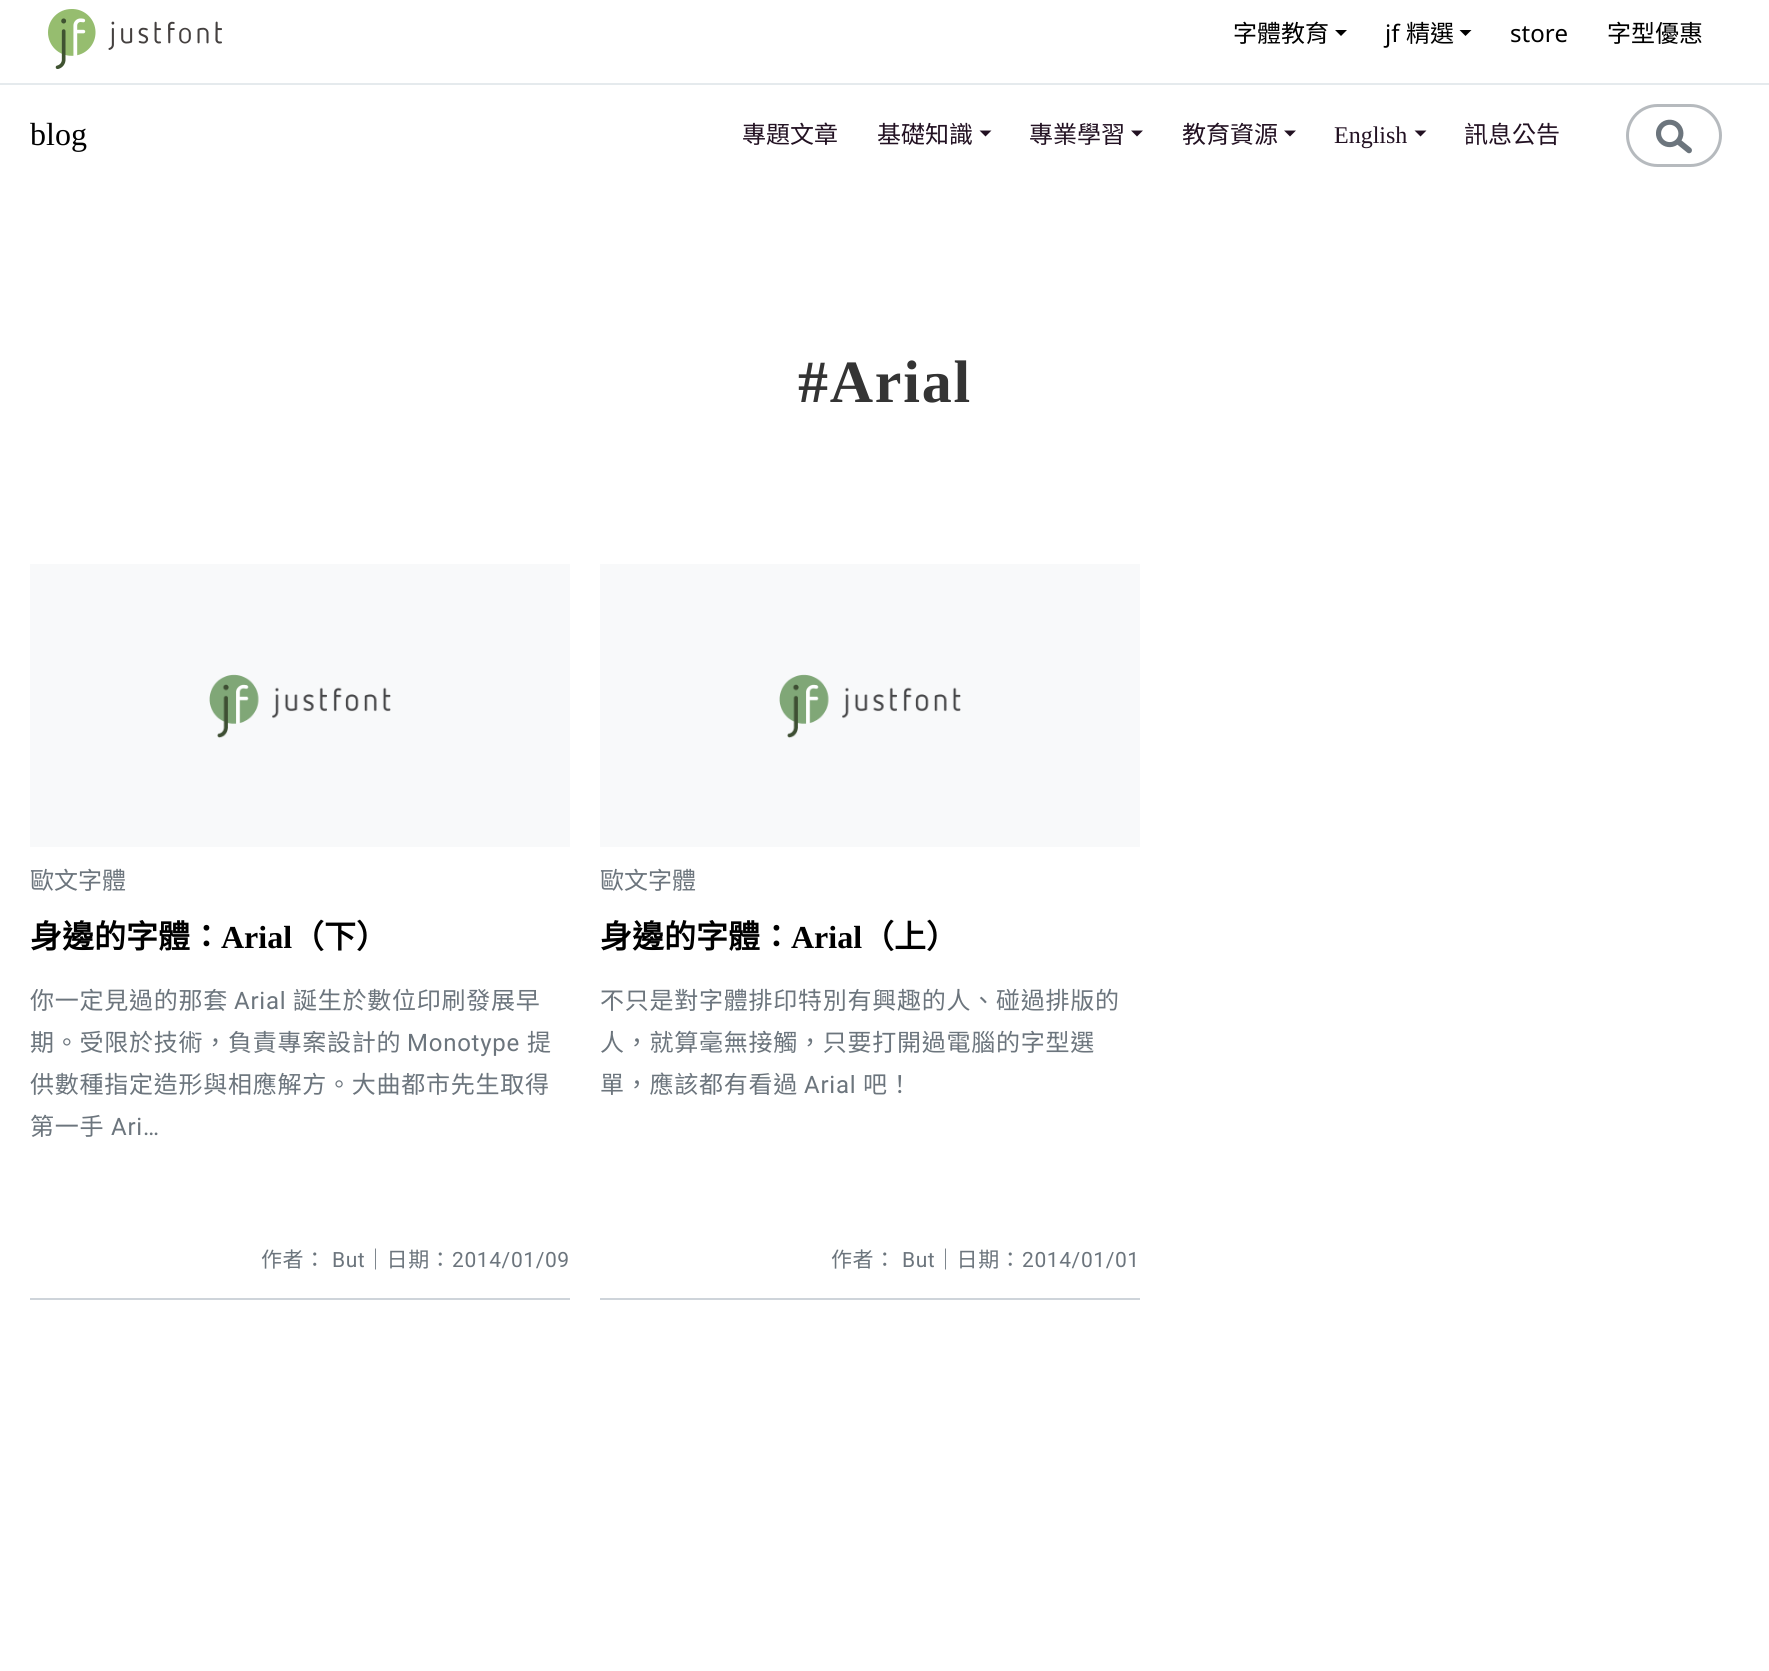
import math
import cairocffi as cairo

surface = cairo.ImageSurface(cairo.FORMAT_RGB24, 1769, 1671)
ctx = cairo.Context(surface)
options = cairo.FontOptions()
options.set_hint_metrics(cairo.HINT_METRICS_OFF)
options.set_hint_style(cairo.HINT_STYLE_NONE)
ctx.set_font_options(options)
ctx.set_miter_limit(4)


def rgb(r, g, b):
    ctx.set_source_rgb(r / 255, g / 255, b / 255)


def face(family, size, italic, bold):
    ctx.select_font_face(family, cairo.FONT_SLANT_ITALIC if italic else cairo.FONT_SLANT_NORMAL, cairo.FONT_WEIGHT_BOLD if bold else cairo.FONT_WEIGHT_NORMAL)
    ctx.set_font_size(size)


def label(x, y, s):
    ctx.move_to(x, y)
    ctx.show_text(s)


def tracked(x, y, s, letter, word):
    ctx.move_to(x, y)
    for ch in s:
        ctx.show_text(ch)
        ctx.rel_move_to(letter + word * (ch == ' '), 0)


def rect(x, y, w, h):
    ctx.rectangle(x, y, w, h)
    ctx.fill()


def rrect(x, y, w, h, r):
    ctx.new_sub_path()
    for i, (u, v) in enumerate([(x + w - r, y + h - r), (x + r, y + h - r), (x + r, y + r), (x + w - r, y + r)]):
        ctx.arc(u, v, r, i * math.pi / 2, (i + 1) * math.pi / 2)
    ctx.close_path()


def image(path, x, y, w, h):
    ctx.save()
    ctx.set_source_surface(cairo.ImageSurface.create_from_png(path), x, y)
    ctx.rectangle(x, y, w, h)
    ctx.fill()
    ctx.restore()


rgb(255, 255, 255)
ctx.paint()
rgb(229, 234, 237)
rect(0, 83, 1769, 2)
image('image0.png', 48, 9, 174, 60)
face('Noto Sans CJK TC', 24, 0, 0)
rgb(0, 0, 0)
label(1233, 42, '字體教育')
ctx.new_path()
ctx.move_to(1335, 30)
ctx.line_to(1347, 30)
ctx.line_to(1341, 36)
ctx.close_path()
ctx.fill()
face('Noto Sans', 24, 0, 0)
label(1385, 42, 'jf')
face('Noto Sans CJK TC', 24, 0, 0)
label(1406, 42, '精選')
ctx.new_path()
ctx.move_to(1459.5, 30)
ctx.line_to(1471.5, 30)
ctx.line_to(1465.5, 36)
ctx.close_path()
ctx.fill()
face('Noto Sans', 24, 0, 0)
label(1510, 42, 'store')
face('Noto Sans CJK TC', 24, 0, 0)
label(1607, 42, '字型優惠')
face('Liberation Serif', 32, 0, 0)
label(30, 145, 'blog')
face('Noto Sans CJK TC', 24, 0, 0)
rgb(34, 17, 34)
label(742, 143, '專題文章')
label(877, 143, '基礎知識')
ctx.new_path()
ctx.move_to(979.5, 130.5)
ctx.line_to(991.5, 130.5)
ctx.line_to(985.5, 136.5)
ctx.close_path()
ctx.fill()
label(1029, 143, '專業學習')
ctx.new_path()
ctx.move_to(1131, 130.5)
ctx.line_to(1143, 130.5)
ctx.line_to(1137, 136.5)
ctx.close_path()
ctx.fill()
label(1182, 143, '教育資源')
ctx.new_path()
ctx.move_to(1284, 130.5)
ctx.line_to(1296, 130.5)
ctx.line_to(1290, 136.5)
ctx.close_path()
ctx.fill()
face('Liberation Serif', 24, 0, 0)
label(1334, 143, 'English')
ctx.new_path()
ctx.move_to(1414.5, 130.5)
ctx.line_to(1426.5, 130.5)
ctx.line_to(1420.5, 136.5)
ctx.close_path()
ctx.fill()
face('Noto Sans CJK TC', 24, 0, 0)
label(1464, 143, '訊息公告')
rrect(1627.5, 105.5, 93, 60, 30)
rgb(182, 186, 190)
ctx.set_line_width(3)
ctx.stroke()
image('image1.png', 1656, 119, 36, 35)
face('Liberation Serif', 60, 0, 1)
rgb(52, 52, 52)
tracked(798, 402, '#Arial', 1.75, 0)
rgb(206, 212, 218)
rect(30, 1298, 540, 2)
image('image2.png', 30, 564, 540, 283)
face('Noto Sans CJK TC', 24, 0, 0)
rgb(108, 117, 125)
label(30, 889, '歐文字體')
face('Noto Sans CJK TC', 32, 0, 1)
rgb(0, 0, 0)
label(30, 948, '身邊的字體：')
face('Liberation Serif', 32, 0, 1)
label(221, 948, 'Arial')
face('Noto Sans CJK TC', 32, 0, 1)
label(292, 948, '（下）')
face('Noto Sans CJK TC', 24, 0, 0)
rgb(108, 117, 125)
tracked(30, 1009, '你一定見過的那套', 0.75, 0)
face('Roboto', 24, 0, 0)
tracked(234, 1009, 'Arial', 0.75, 0)
face('Noto Sans CJK TC', 24, 0, 0)
tracked(293, 1009, '誕生於數位印刷發展早', 0.75, 0)
tracked(30, 1051, '期。受限於技術，負責專案設計的', 0.75, 0)
face('Roboto', 24, 0, 0)
tracked(407, 1051, 'Monotype', 0.75, 0)
face('Noto Sans CJK TC', 24, 0, 0)
tracked(527, 1051, '提', 0.75, 0)
tracked(30, 1093, '供數種指定造形與相應解方。大曲都市先生取得', 0.75, 0)
tracked(30, 1135, '第一手', 0.75, 0)
face('Roboto', 24, 0, 0)
tracked(111, 1135, 'Ari…', 0.75, 0)
face('Noto Sans CJK TC', 21, 0, 0)
tracked(261, 1267, '作者：', 0.6, 0)
face('Roboto', 21, 0, 0)
tracked(332, 1267, 'But', 0.6, 0)
face('Noto Sans CJK TC', 21, 0, 0)
tracked(365, 1267, '｜日期：', 0.6, 0)
face('Roboto', 21, 0, 0)
tracked(452, 1267, '2014/01/09', 0.6, 0)
rgb(206, 212, 218)
rect(600, 1298, 540, 2)
image('image2.png', 600, 564, 540, 283)
face('Noto Sans CJK TC', 24, 0, 0)
rgb(108, 117, 125)
label(600, 889, '歐文字體')
face('Noto Sans CJK TC', 32, 0, 1)
rgb(0, 0, 0)
label(600, 948, '身邊的字體：')
face('Liberation Serif', 32, 0, 1)
label(791, 948, 'Arial')
face('Noto Sans CJK TC', 32, 0, 1)
label(862, 948, '（上）')
face('Noto Sans CJK TC', 24, 0, 0)
rgb(108, 117, 125)
tracked(600, 1009, '不只是對字體排印特別有興趣的人、碰過排版的', 0.75, 0)
tracked(600, 1051, '人，就算毫無接觸，只要打開過電腦的字型選', 0.75, 0)
tracked(600, 1093, '單，應該都有看過', 0.75, 0)
face('Roboto', 24, 0, 0)
tracked(804, 1093, 'Arial', 0.75, 0)
face('Noto Sans CJK TC', 24, 0, 0)
tracked(863, 1093, '吧！', 0.75, 0)
face('Noto Sans CJK TC', 21, 0, 0)
tracked(831, 1267, '作者：', 0.6, 0)
face('Roboto', 21, 0, 0)
tracked(902, 1267, 'But', 0.6, 0)
face('Noto Sans CJK TC', 21, 0, 0)
tracked(935, 1267, '｜日期：', 0.6, 0)
face('Roboto', 21, 0, 0)
tracked(1022, 1267, '2014/01/01', 0.6, 0)
surface.write_to_png('render.png')
